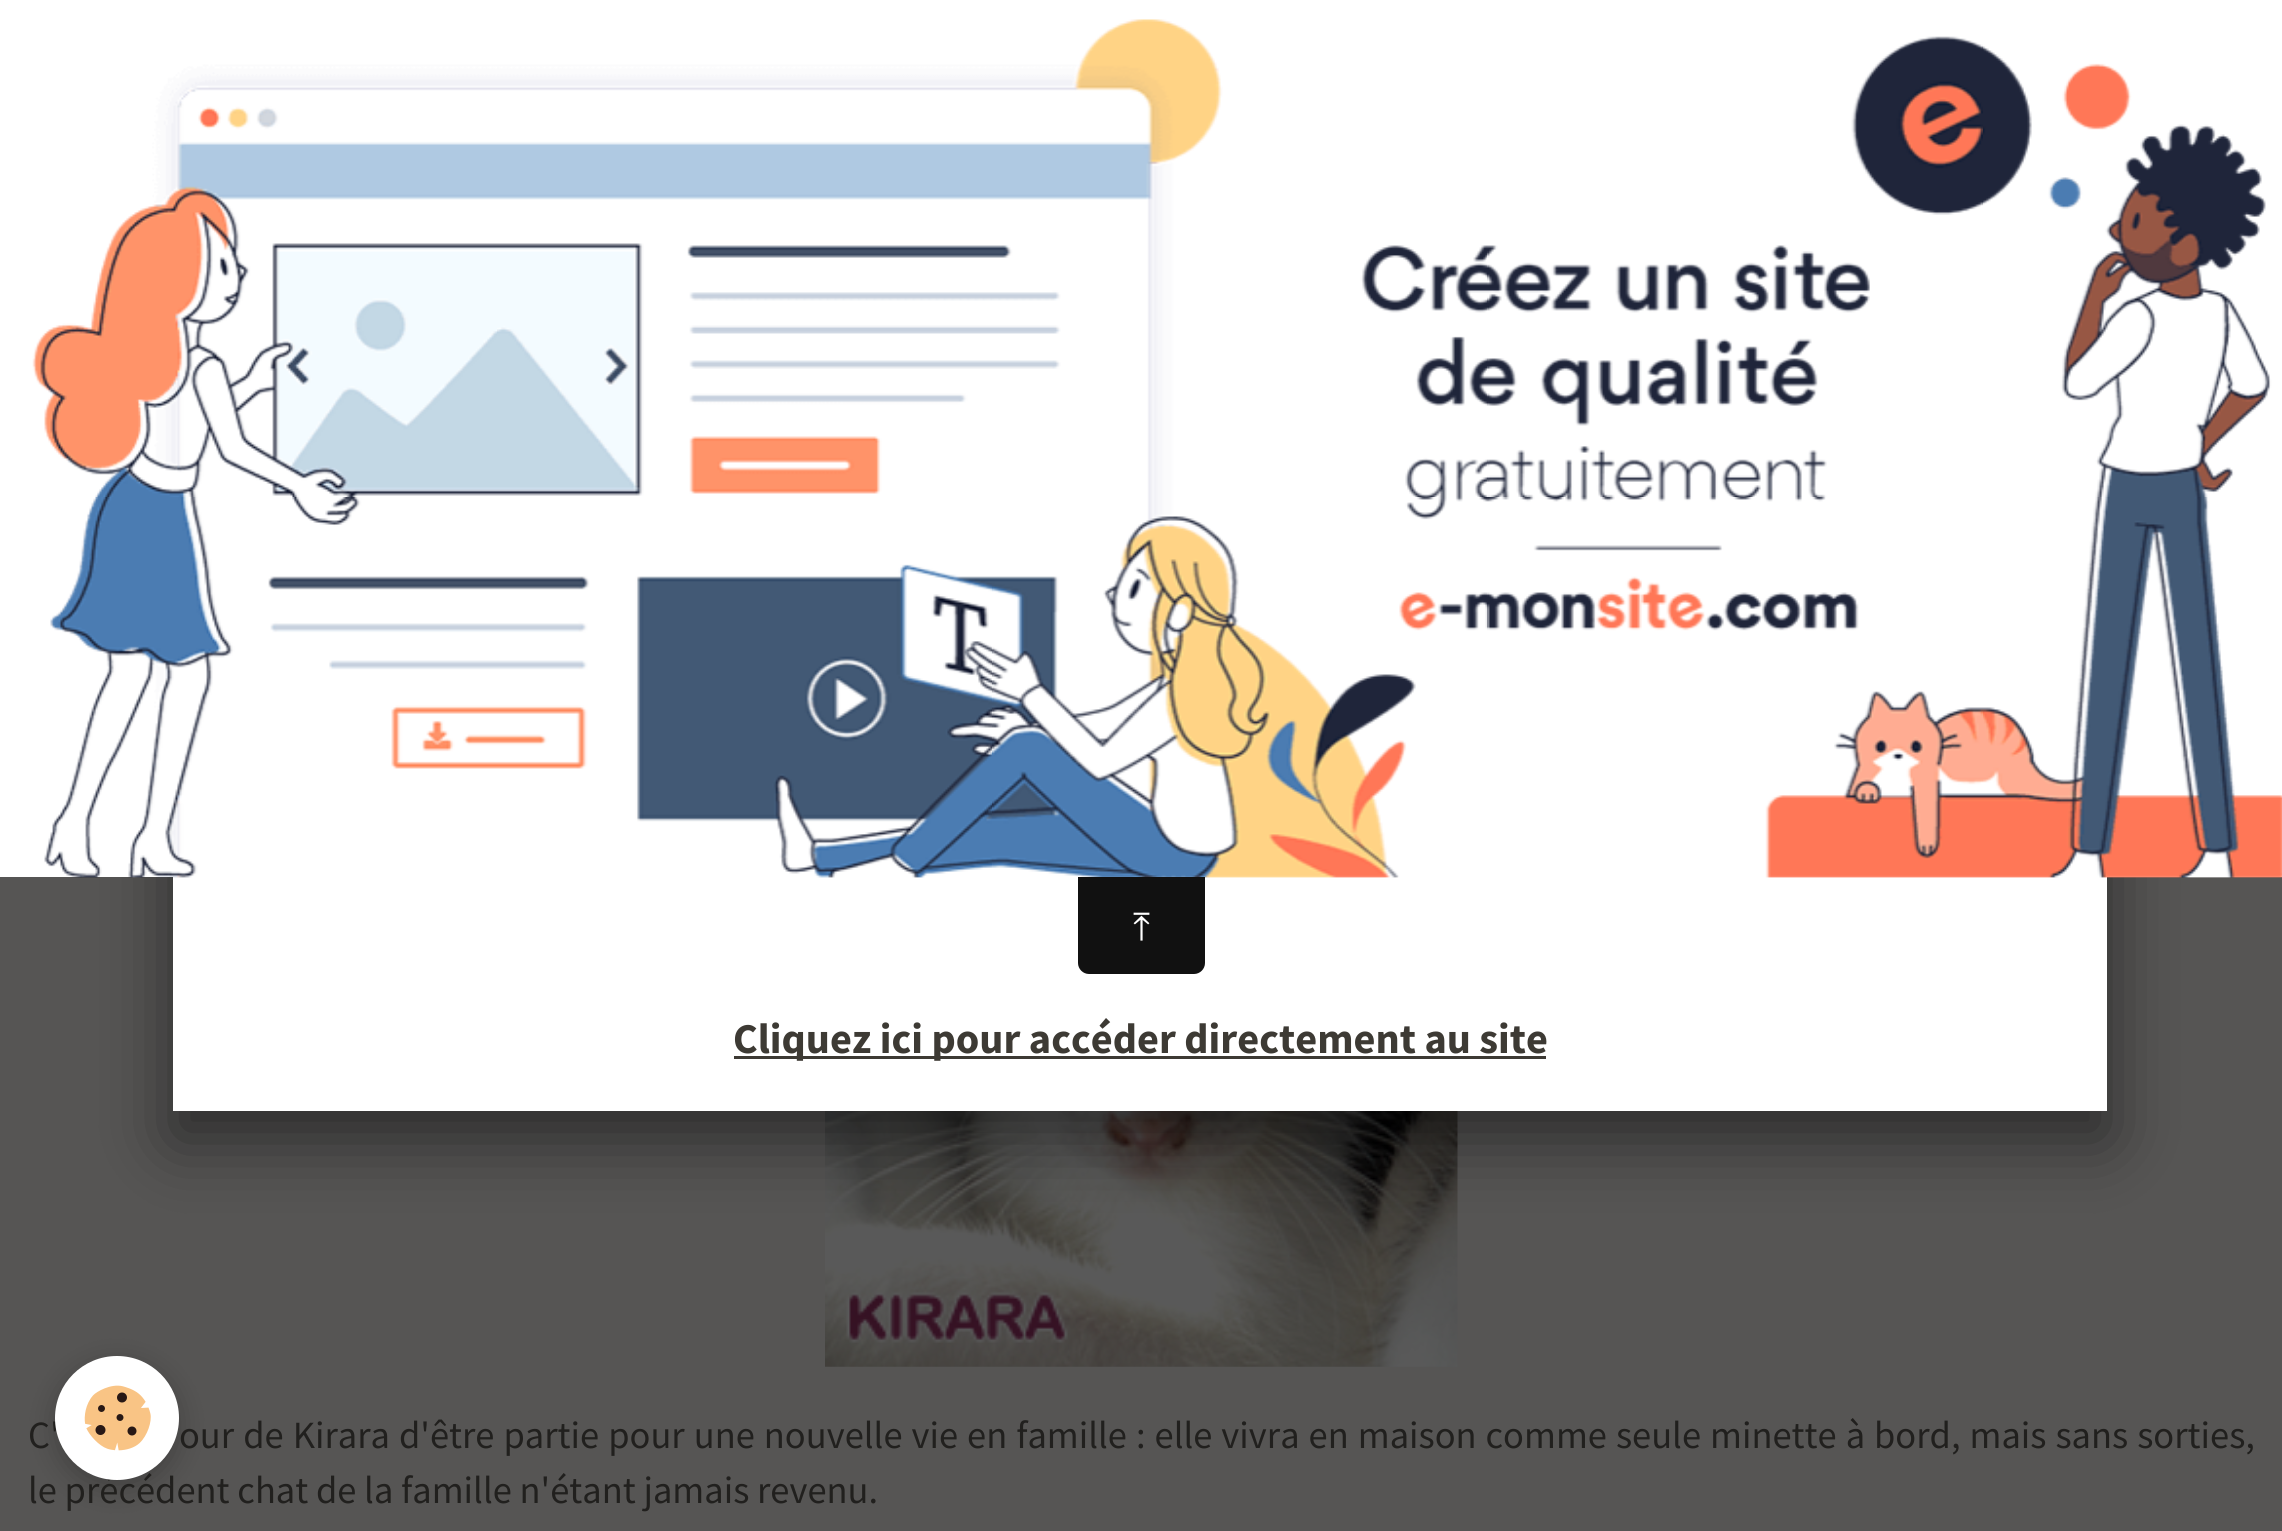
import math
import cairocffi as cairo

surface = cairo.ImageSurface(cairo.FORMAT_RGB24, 2282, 1531)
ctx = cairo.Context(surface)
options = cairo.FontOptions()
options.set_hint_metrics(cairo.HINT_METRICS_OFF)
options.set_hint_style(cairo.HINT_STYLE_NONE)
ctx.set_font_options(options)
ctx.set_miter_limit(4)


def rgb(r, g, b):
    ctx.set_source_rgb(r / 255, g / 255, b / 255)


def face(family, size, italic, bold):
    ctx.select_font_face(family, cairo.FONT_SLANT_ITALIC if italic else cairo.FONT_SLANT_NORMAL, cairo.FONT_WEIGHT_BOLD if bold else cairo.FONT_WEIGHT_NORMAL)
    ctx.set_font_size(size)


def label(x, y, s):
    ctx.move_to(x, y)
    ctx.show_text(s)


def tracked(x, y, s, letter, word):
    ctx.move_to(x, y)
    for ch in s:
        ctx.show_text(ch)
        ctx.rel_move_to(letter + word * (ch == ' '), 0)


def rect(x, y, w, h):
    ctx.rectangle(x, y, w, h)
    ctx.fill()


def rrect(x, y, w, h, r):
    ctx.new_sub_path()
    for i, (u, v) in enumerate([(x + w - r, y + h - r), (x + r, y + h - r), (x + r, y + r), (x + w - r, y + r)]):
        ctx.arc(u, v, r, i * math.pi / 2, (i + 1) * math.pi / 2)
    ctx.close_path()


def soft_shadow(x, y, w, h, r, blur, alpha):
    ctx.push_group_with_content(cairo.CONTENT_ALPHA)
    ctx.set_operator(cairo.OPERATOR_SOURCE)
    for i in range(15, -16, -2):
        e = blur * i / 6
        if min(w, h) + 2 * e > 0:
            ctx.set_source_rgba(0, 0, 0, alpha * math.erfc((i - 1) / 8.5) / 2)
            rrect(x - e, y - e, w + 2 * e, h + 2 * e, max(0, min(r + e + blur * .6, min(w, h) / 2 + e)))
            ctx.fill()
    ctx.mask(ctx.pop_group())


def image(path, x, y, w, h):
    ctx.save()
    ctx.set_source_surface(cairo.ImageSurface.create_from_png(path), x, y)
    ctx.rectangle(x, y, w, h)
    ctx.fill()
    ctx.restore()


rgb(86, 85, 84)
ctx.paint()
image('image2.png', 825, 1111, 633, 256)
rgb(0, 0, 0)
soft_shadow(173, 446, 1934, 693, 0, 34.5, 0.5)
rgb(255, 255, 255)
rect(0, 0, 2282, 877)
rect(173, 877, 1934, 234)
image('image0.png', 32, 19, 2250, 859)
rgb(17, 17, 17)
ctx.new_path()
ctx.move_to(1078, 877)
ctx.line_to(1205, 877)
ctx.line_to(1205, 963)
ctx.curve_to(1205, 969, 1200, 974, 1194, 974)
ctx.line_to(1089, 974)
ctx.curve_to(1083, 974, 1078, 969, 1078, 963)
ctx.close_path()
ctx.fill()
face('FreeSerif', 38.5, 0, 0)
rgb(255, 255, 255)
label(1133, 940, '⤒')
rgb(61, 58, 52)
rect(734, 1056, 812, 3)
face('Source Sans Pro', 42.4, 0, 1)
label(733, 1053, 'Cliquez ici pour accéder directement au site')
rgb(0, 0, 0)
soft_shadow(55, 1364, 124, 124, 62, 14, 0.24)
face('Source Sans Pro', 38.5, 0, 0)
rgb(33, 32, 30)
tracked(28, 1448, 'C\'', 0, 1.3)
label(28, 1503, 'le précédent chat de la famille n\'étant jamais revenu.')
rgb(255, 255, 255)
ctx.new_path()
ctx.arc(117, 1418, 62, 0, 2 * math.pi)
ctx.fill()
image('image1.png', 84, 1385, 67, 66)
rgb(33, 32, 30)
tracked(179, 1448, 'our de Kirara d\'être partie pour une nouvelle vie en famille : elle vivra en maison comme seule minette à bord, mais sans sorties,', 0, 1.3)
surface.write_to_png('render.png')
